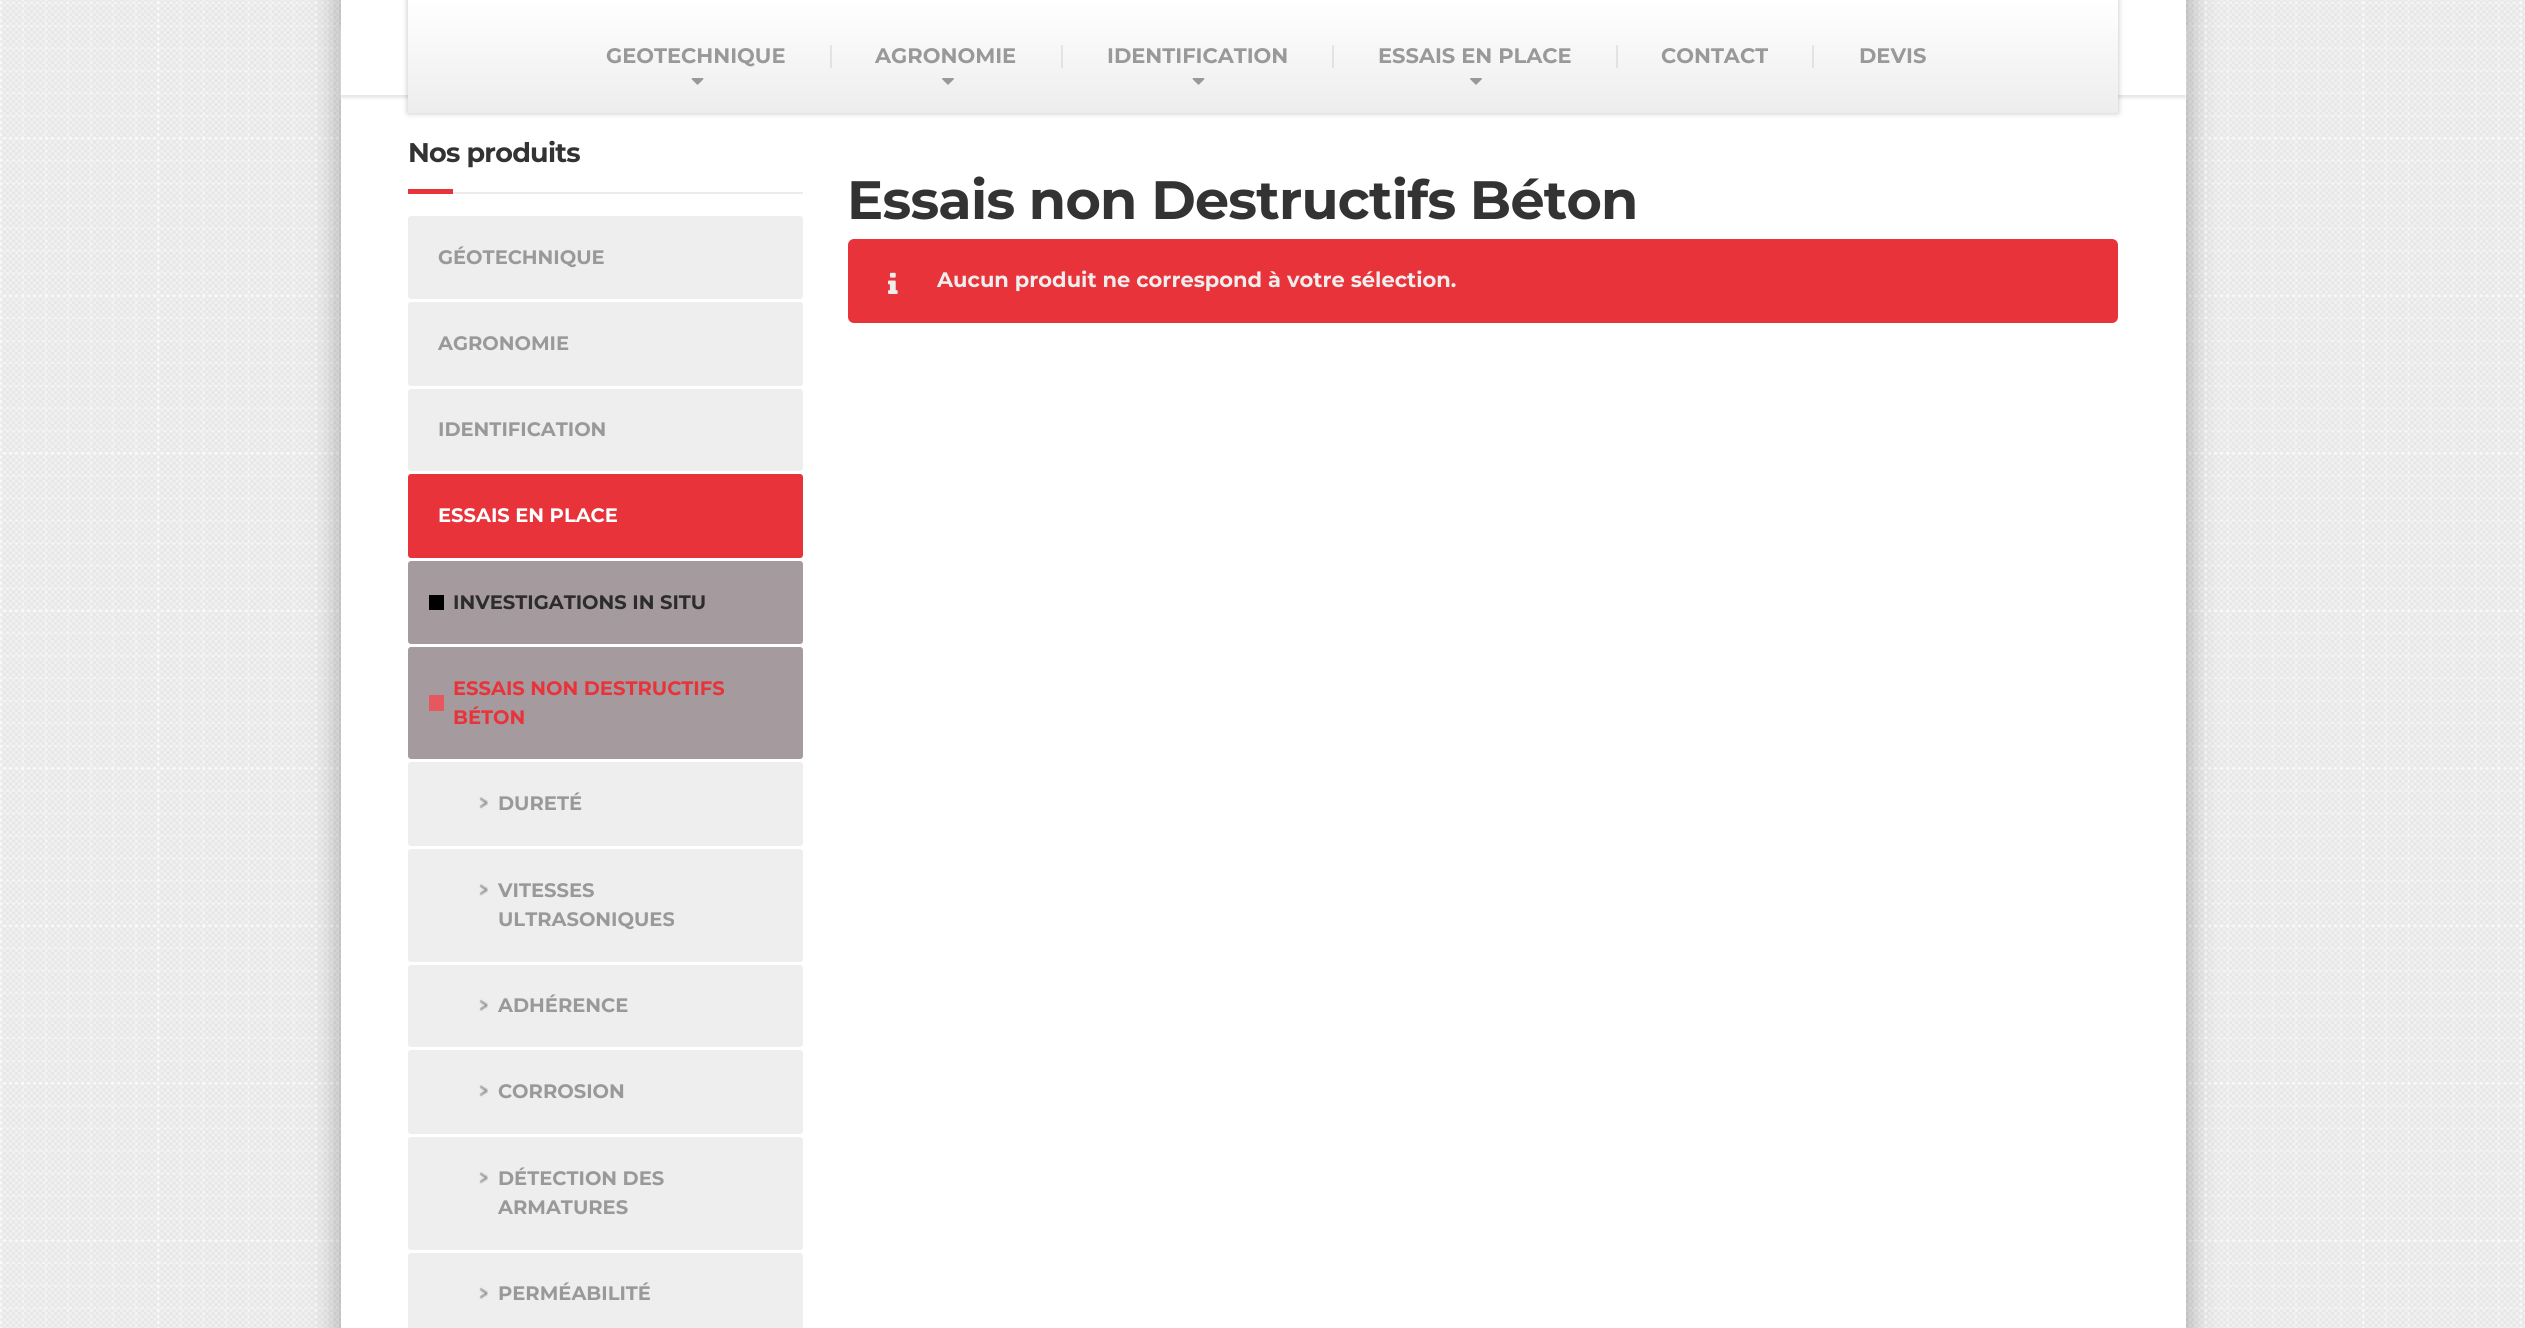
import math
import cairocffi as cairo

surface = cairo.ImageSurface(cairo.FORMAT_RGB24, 2525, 1328)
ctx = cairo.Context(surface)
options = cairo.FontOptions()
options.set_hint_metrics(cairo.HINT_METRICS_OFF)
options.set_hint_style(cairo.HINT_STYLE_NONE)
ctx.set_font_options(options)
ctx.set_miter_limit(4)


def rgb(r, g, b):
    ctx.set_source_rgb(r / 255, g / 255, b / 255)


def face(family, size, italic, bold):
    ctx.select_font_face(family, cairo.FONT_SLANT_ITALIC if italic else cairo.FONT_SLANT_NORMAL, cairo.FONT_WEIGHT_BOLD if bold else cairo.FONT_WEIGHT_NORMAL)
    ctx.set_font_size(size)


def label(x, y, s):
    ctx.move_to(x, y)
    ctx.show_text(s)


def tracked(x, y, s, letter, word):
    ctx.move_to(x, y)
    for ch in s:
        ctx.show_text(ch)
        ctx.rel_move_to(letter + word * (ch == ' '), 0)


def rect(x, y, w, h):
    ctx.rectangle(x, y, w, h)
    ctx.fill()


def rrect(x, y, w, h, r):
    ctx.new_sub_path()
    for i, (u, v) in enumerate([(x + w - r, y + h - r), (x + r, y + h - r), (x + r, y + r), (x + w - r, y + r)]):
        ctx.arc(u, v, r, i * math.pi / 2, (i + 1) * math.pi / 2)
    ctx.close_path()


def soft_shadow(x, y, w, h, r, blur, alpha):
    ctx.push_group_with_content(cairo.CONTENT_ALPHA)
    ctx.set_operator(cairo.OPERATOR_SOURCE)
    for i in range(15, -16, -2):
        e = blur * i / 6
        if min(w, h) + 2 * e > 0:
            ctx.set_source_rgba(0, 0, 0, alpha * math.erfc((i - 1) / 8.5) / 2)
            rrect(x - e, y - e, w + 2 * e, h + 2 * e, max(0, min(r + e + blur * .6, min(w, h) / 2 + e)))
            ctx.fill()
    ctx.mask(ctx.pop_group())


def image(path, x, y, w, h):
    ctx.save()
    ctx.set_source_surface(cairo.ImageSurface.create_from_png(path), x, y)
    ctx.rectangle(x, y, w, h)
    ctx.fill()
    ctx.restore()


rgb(255, 255, 255)
ctx.paint()
image('image0.png', 0, 0, 2525, 1328)
rgb(0, 0, 0)
soft_shadow(341, -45, 1845, 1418, 0, 15, 0.33)
rgb(255, 255, 255)
rect(341, 0, 1845, 1328)
rgb(230, 230, 230)
soft_shadow(341, 29, 1845, 69, 0, 1.5, 1)
rgb(255, 255, 255)
rect(341, 27, 1845, 68)
rgb(0, 0, 0)
soft_shadow(408, 0, 1710, 113, 0, 3, 0.25)
gradient = cairo.LinearGradient(1263, 0, 1263, 113)
gradient.add_color_stop_rgba(0, 1, 1, 1, 1)
gradient.add_color_stop_rgba(1, 0.929, 0.929, 0.929, 1)
ctx.set_source(gradient)
rect(408, 0, 1710, 113)
face('Montserrat Thin', 21, 0, 0)
rgb(153, 153, 153)
label(606, 63, 'GEOTECHNIQUE')
ctx.set_source_rgba(0, 0, 0, 0.08)
rect(830, 45, 2, 23)
image('image1.png', 691, 78, 13, 7)
rgb(153, 153, 153)
label(875, 63, 'AGRONOMIE')
ctx.set_source_rgba(0, 0, 0, 0.08)
rect(1061, 45, 2, 23)
image('image2.png', 942, 78, 12, 7)
rgb(153, 153, 153)
label(1107, 63, 'IDENTIFICATION')
ctx.set_source_rgba(0, 0, 0, 0.08)
rect(1332, 45, 2, 23)
image('image1.png', 1192, 78, 13, 7)
rgb(153, 153, 153)
label(1378, 63, 'ESSAIS EN PLACE')
ctx.set_source_rgba(0, 0, 0, 0.08)
rect(1616, 45, 2, 23)
image('image2.png', 1470, 78, 12, 7)
rgb(153, 153, 153)
label(1661, 63, 'CONTACT')
ctx.set_source_rgba(0, 0, 0, 0.08)
rect(1812, 45, 2, 23)
rgb(153, 153, 153)
label(1859, 63, 'DEVIS')
rgb(235, 235, 235)
rect(453, 192, 350, 2)
face('Montserrat Thin', 27, 0, 0)
rgb(51, 51, 51)
tracked(408, 162, 'Nos produits', -0.75, 0)
rgb(231, 51, 57)
rect(408, 189, 45, 5)
rgb(238, 238, 238)
rrect(408, 216, 395, 83, 3)
ctx.fill()
face('Montserrat Thin', 19.5, 0, 0)
rgb(153, 153, 153)
label(438, 264, 'GÉOTECHNIQUE')
rgb(238, 238, 238)
rrect(408, 302, 395, 84, 3)
ctx.fill()
rgb(153, 153, 153)
label(438, 350, 'AGRONOMIE')
rgb(238, 238, 238)
rrect(408, 389, 395, 82, 3)
ctx.fill()
rgb(153, 153, 153)
label(438, 436, 'IDENTIFICATION')
rgb(231, 51, 57)
rrect(408, 474, 395, 84, 3)
ctx.fill()
rgb(255, 255, 255)
label(438, 522, 'ESSAIS EN PLACE')
rgb(165, 154, 158)
rrect(408, 561, 395, 83, 3)
ctx.fill()
rgb(0, 0, 0)
rect(429, 595, 15, 15)
rgb(44, 44, 44)
label(453, 609, 'INVESTIGATIONS IN SITU')
rgb(165, 154, 158)
rrect(408, 647, 395, 112, 3)
ctx.fill()
rgb(231, 87, 96)
rect(429, 695, 15, 16)
rgb(231, 51, 57)
label(453, 695, 'ESSAIS NON DESTRUCTIFS')
label(453, 724, 'BÉTON')
rgb(238, 238, 238)
rrect(408, 762, 395, 84, 3)
ctx.fill()
image('image3.png', 479, 797, 9, 12)
rgb(153, 153, 153)
label(498, 810, 'DURETÉ')
rgb(238, 238, 238)
rrect(408, 849, 395, 113, 3)
ctx.fill()
image('image3.png', 479, 884, 9, 12)
rgb(153, 153, 153)
label(498, 897, 'VITESSES')
label(498, 926, 'ULTRASONIQUES')
rgb(238, 238, 238)
rrect(408, 965, 395, 82, 3)
ctx.fill()
image('image4.png', 479, 999, 9, 12)
rgb(153, 153, 153)
label(498, 1012, 'ADHÉRENCE')
rgb(238, 238, 238)
rrect(408, 1050, 395, 84, 3)
ctx.fill()
image('image3.png', 479, 1085, 9, 12)
rgb(153, 153, 153)
label(498, 1098, 'CORROSION')
rgb(238, 238, 238)
rrect(408, 1137, 395, 113, 3)
ctx.fill()
image('image3.png', 479, 1172, 9, 12)
rgb(153, 153, 153)
label(498, 1185, 'DÉTECTION DES')
label(498, 1214, 'ARMATURES')
rgb(238, 238, 238)
rrect(408, 1253, 395, 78, 3)
ctx.fill()
image('image4.png', 479, 1287, 9, 12)
rgb(153, 153, 153)
label(498, 1300, 'PERMÉABILITÉ')
face('Montserrat Thin', 54, 0, 0)
rgb(51, 51, 51)
tracked(847, 219, 'Essais non Destructifs Béton', -0.75, 0)
rgb(231, 51, 57)
rrect(848, 239, 1270, 84, 6)
ctx.fill()
image('image5.png', 888, 272, 10, 22)
face('Montserrat Thin', 21, 0, 0)
rgb(237, 237, 237)
label(937, 287, 'Aucun produit ne correspond à votre sélection.')
surface.write_to_png('render.png')
